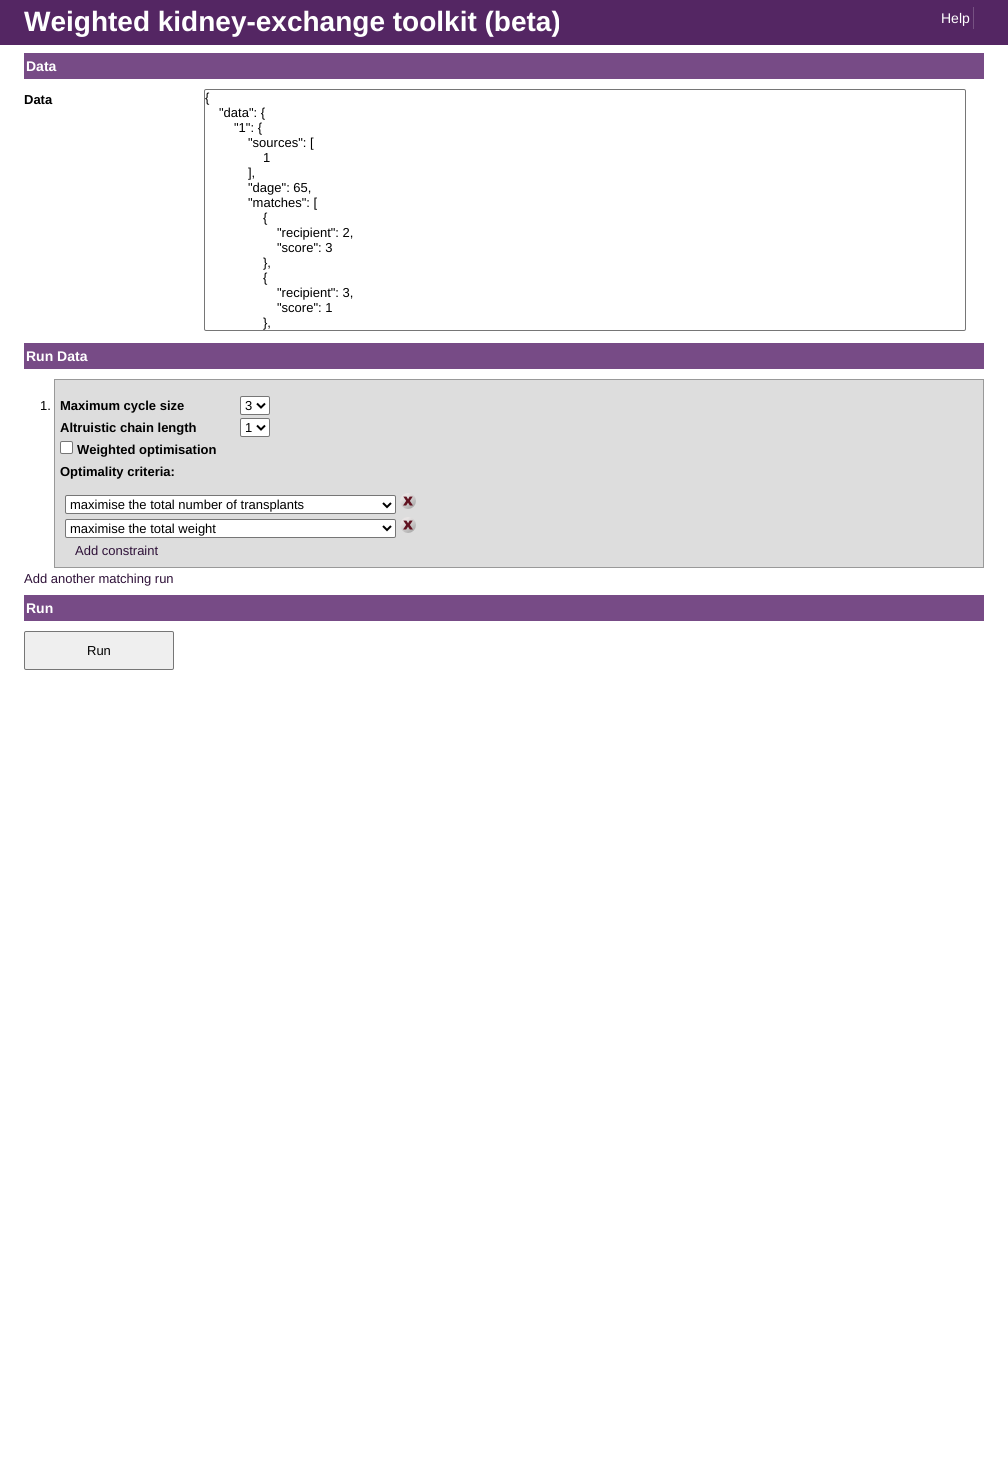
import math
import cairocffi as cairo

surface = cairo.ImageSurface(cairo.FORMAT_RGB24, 1008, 1464)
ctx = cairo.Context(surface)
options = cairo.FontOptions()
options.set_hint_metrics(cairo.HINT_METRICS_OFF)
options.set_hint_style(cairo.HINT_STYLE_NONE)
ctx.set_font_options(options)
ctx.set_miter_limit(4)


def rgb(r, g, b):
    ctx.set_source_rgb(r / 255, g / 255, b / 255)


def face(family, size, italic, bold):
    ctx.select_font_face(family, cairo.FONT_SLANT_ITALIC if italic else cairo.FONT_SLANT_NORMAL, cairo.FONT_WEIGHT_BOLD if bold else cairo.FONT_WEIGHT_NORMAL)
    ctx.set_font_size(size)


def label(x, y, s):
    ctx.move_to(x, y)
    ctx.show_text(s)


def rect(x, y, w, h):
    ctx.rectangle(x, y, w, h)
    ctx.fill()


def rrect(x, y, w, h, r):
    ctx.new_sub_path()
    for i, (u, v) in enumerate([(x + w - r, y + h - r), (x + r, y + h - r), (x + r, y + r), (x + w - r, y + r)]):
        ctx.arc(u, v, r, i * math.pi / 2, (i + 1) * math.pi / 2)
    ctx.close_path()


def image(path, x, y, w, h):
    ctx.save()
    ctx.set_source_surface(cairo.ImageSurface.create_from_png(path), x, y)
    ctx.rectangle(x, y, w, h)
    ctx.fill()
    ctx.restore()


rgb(255, 255, 255)
ctx.paint()
rgb(84, 38, 99)
rect(0, 0, 1008, 45)
face('Liberation Sans', 28, 0, 1)
rgb(255, 255, 255)
label(24, 31, 'Weighted kidney-exchange toolkit (beta)')
rgb(118, 81, 130)
rect(973, 7, 1, 22)
face('Liberation Sans', 14, 0, 0)
rgb(255, 255, 255)
label(941, 23, 'Help')
rgb(119, 75, 134)
rect(24, 53, 960, 26)
face('Liberation Sans', 14, 0, 1)
rgb(255, 255, 255)
label(26, 71, 'Data')
face('Liberation Sans', 13, 0, 1)
rgb(0, 0, 0)
label(24, 104, 'Data')
rrect(204.5, 89.5, 761, 241, 1.5)
rgb(118, 118, 118)
ctx.set_line_width(1)
ctx.stroke()
face('Liberation Sans', 13, 0, 0)
rgb(0, 0, 0)
label(205, 102, '{')
label(219, 117, '"data": {')
label(234, 132, '"1": {')
label(248, 147, '"sources": [')
label(263, 162, '1')
label(248, 177, '],')
label(248, 192, '"dage": 65,')
label(248, 207, '"matches": [')
label(263, 222, '{')
label(277, 237, '"recipient": 2,')
label(277, 252, '"score": 3')
label(263, 267, '},')
label(263, 282, '{')
label(277, 297, '"recipient": 3,')
label(277, 312, '"score": 1')
label(263, 327, '},')
rgb(119, 75, 134)
rect(24, 343, 960, 26)
face('Liberation Sans', 14, 0, 1)
rgb(255, 255, 255)
label(26, 361, 'Run Data')
rgb(221, 221, 221)
ctx.rectangle(54.5, 379.5, 929, 188)
ctx.fill_preserve()
rgb(153, 153, 153)
ctx.stroke()
face('Liberation Sans', 13, 0, 0)
rgb(0, 0, 0)
label(40, 410, '1.')
face('Liberation Sans', 13, 0, 1)
label(60, 410, 'Maximum cycle size')
rgb(255, 255, 255)
rrect(240.5, 396.5, 29, 18, 1.5)
ctx.fill_preserve()
rgb(118, 118, 118)
ctx.stroke()
ctx.new_path()
ctx.move_to(257, 403.5)
ctx.line_to(261, 407.5)
ctx.line_to(265, 403.5)
rgb(0, 0, 0)
ctx.set_line_width(2)
ctx.stroke()
face('Liberation Sans', 13, 0, 0)
label(245, 410, '3')
face('Liberation Sans', 13, 0, 1)
label(60, 432, 'Altruistic chain length')
rgb(255, 255, 255)
rrect(240.5, 418.5, 29, 18, 1.5)
ctx.fill_preserve()
rgb(118, 118, 118)
ctx.set_line_width(1)
ctx.stroke()
ctx.new_path()
ctx.move_to(257, 425.5)
ctx.line_to(261, 429.5)
ctx.line_to(265, 425.5)
rgb(0, 0, 0)
ctx.set_line_width(2)
ctx.stroke()
face('Liberation Sans', 13, 0, 0)
label(245, 432, '1')
rgb(255, 255, 255)
rrect(60.5, 441.5, 12, 12, 1.5)
ctx.fill_preserve()
rgb(118, 118, 118)
ctx.set_line_width(1)
ctx.stroke()
face('Liberation Sans', 13, 0, 1)
rgb(0, 0, 0)
label(77, 454, 'Weighted optimisation')
label(60, 476, 'Optimality criteria:')
rgb(255, 255, 255)
rrect(65.5, 495.5, 330, 18, 1.5)
ctx.fill_preserve()
rgb(118, 118, 118)
ctx.stroke()
ctx.new_path()
ctx.move_to(383, 503)
ctx.line_to(387, 507)
ctx.line_to(391, 503)
rgb(0, 0, 0)
ctx.set_line_width(2)
ctx.stroke()
face('Liberation Sans', 13, 0, 0)
label(70, 509, 'maximise the total number of transplants')
image('image0.png', 400, 493, 16, 16)
rgb(255, 255, 255)
rrect(65.5, 519.5, 330, 18, 1.5)
ctx.fill_preserve()
rgb(118, 118, 118)
ctx.set_line_width(1)
ctx.stroke()
ctx.new_path()
ctx.move_to(383, 526)
ctx.line_to(387, 530)
ctx.line_to(391, 526)
rgb(0, 0, 0)
ctx.set_line_width(2)
ctx.stroke()
label(70, 533, 'maximise the total weight')
image('image0.png', 400, 517, 16, 16)
rgb(47, 18, 57)
label(75, 555, 'Add constraint')
label(24, 583, 'Add another matching run')
rgb(119, 75, 134)
rect(24, 595, 960, 26)
face('Liberation Sans', 14, 0, 1)
rgb(255, 255, 255)
label(26, 613, 'Run')
rgb(239, 239, 239)
rrect(24.5, 631.5, 149, 38, 1.5)
ctx.fill_preserve()
rgb(118, 118, 118)
ctx.set_line_width(1)
ctx.stroke()
face('Liberation Sans', 13, 0, 0)
rgb(0, 0, 0)
label(87, 655, 'Run')
surface.write_to_png('render.png')
